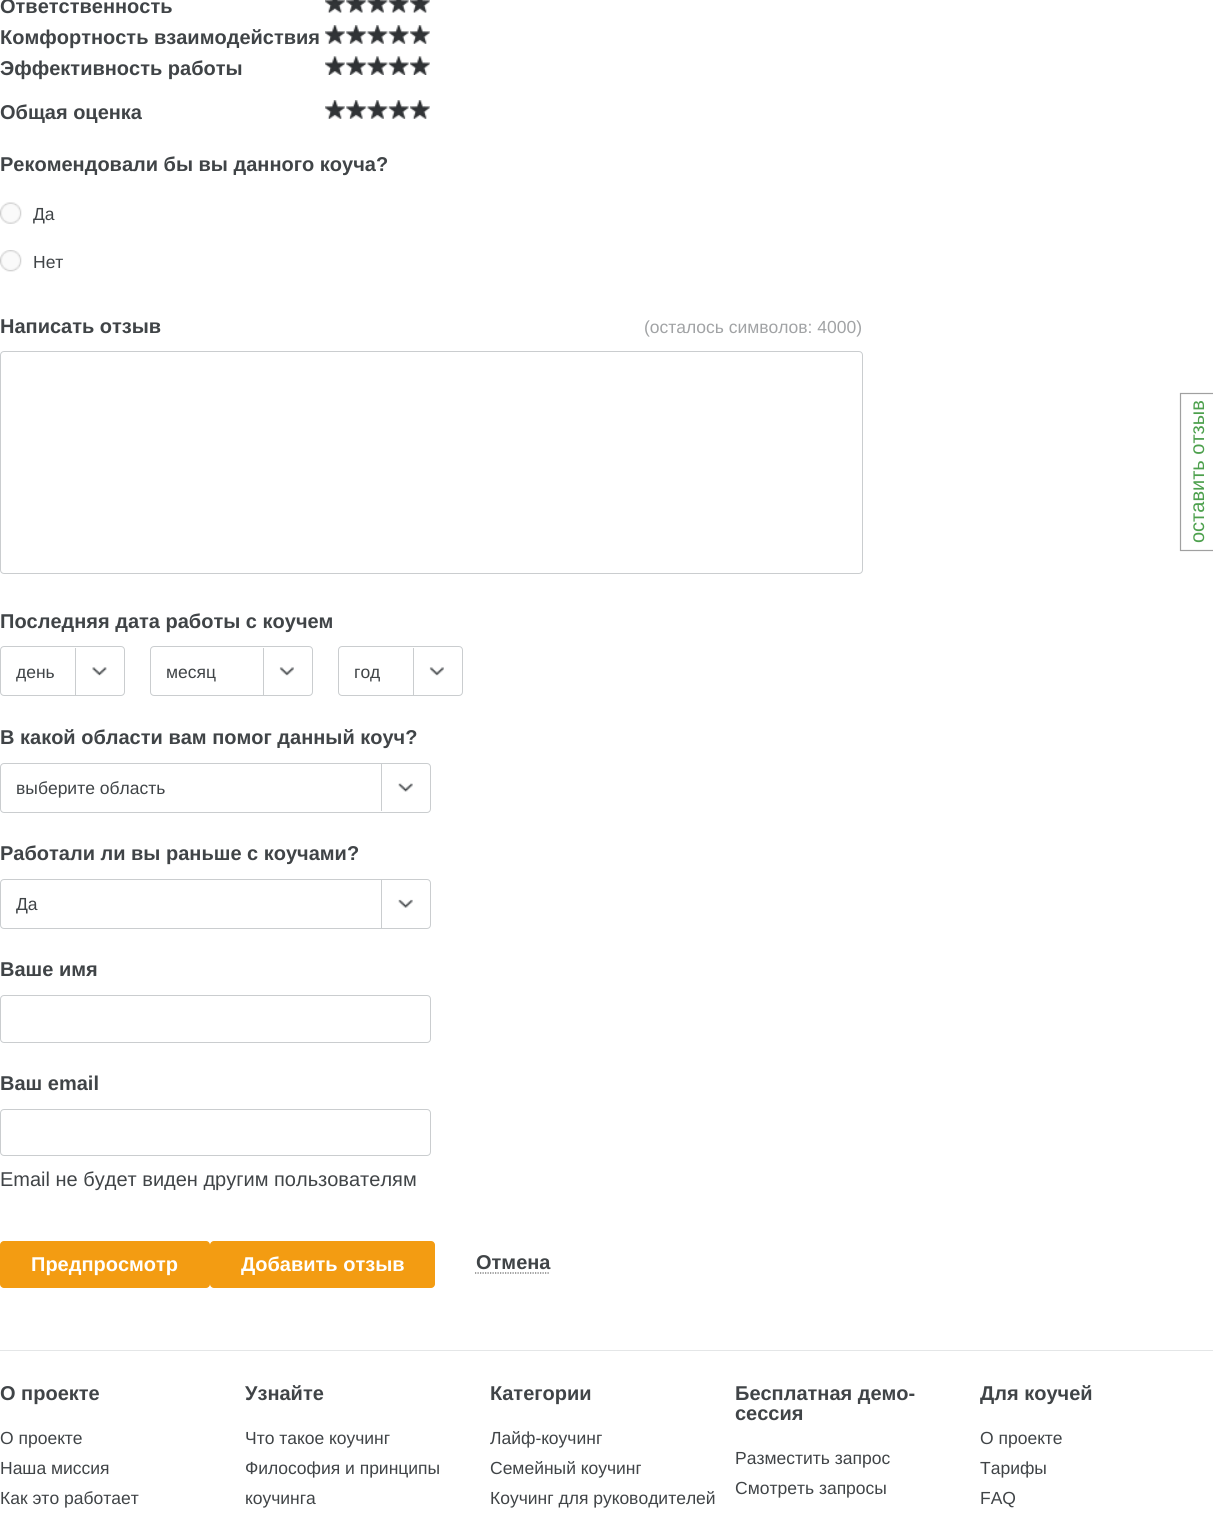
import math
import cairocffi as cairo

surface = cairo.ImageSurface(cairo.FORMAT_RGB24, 1213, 1515)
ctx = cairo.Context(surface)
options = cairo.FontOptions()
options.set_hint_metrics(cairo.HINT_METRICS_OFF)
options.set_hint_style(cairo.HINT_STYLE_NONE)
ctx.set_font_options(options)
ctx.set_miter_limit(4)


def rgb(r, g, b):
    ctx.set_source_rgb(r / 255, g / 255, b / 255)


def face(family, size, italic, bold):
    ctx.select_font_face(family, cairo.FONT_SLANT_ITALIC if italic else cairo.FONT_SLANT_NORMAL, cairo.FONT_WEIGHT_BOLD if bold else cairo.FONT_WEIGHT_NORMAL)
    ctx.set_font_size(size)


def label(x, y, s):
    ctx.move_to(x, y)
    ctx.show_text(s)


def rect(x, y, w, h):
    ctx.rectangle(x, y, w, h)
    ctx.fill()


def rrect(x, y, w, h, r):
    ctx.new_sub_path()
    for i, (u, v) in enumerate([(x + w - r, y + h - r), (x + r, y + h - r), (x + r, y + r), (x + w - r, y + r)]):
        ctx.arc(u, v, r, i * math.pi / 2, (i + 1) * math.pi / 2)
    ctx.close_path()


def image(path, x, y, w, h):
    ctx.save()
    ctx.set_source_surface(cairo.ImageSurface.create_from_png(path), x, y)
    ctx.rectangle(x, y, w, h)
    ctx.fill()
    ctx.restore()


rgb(255, 255, 255)
ctx.paint()
face('Liberation Sans', 20, 0, 1)
rgb(64, 68, 71)
label(0, 13, 'Ответственность')
image('image0.png', 325, 0, 20, 13)
image('image1.png', 346, 0, 21, 13)
image('image2.png', 367, 0, 21, 13)
image('image3.png', 388, 0, 21, 13)
image('image0.png', 410, 0, 20, 13)
label(0, 44, 'Комфортность взаимодействия')
image('image4.png', 325, 25, 20, 19)
image('image5.png', 346, 25, 21, 19)
image('image6.png', 367, 25, 21, 19)
image('image7.png', 388, 25, 21, 19)
image('image4.png', 410, 25, 20, 19)
label(0, 75, 'Эффективность работы')
image('image8.png', 325, 56, 20, 19)
image('image9.png', 346, 56, 21, 19)
image('image10.png', 367, 56, 21, 19)
image('image11.png', 388, 56, 21, 19)
image('image8.png', 410, 56, 20, 19)
label(0, 119, 'Общая оценка')
image('image4.png', 325, 100, 20, 19)
image('image5.png', 346, 100, 21, 19)
image('image6.png', 367, 100, 21, 19)
image('image7.png', 388, 100, 21, 19)
image('image4.png', 410, 100, 20, 19)
label(0, 171, 'Рекомендовали бы вы данного коуча?')
image('image12.png', 0, 202, 22, 22)
face('Liberation Sans', 17.5, 0, 0)
label(33, 220, 'Да')
image('image13.png', 0, 250, 22, 22)
label(33, 268, 'Нет')
face('Liberation Sans', 20, 0, 1)
label(0, 333, 'Написать отзыв')
rrect(0.5, 351.5, 862, 222, 3.5)
rgb(202, 205, 207)
ctx.set_line_width(1)
ctx.stroke()
face('Liberation Sans', 17.5, 0, 0)
rgb(161, 163, 165)
label(644, 333, '(осталось символов: 4000)')
face('Liberation Sans', 20, 0, 1)
rgb(64, 68, 71)
label(0, 628, 'Последняя дата работы с коучем')
rrect(0.5, 646.5, 124, 49, 3.5)
rgb(202, 205, 207)
ctx.stroke()
face('Liberation Sans', 17.5, 0, 0)
rgb(64, 68, 71)
label(16, 678, 'день')
image('image14.png', 92, 667, 15, 9)
rgb(202, 205, 207)
rect(75, 648, 1, 47)
rrect(150.5, 646.5, 162, 49, 3.5)
ctx.stroke()
rgb(64, 68, 71)
label(166, 678, 'месяц')
image('image15.png', 279, 667, 15, 9)
rgb(202, 205, 207)
rect(263, 648, 1, 47)
rrect(338.5, 646.5, 124, 49, 3.5)
ctx.stroke()
rgb(64, 68, 71)
label(354, 678, 'год')
image('image15.png', 429, 667, 15, 9)
rgb(202, 205, 207)
rect(413, 648, 1, 47)
face('Liberation Sans', 20, 0, 1)
rgb(64, 68, 71)
label(0, 744, 'В какой области вам помог данный коуч?')
rrect(0.5, 763.5, 430, 49, 3.5)
rgb(202, 205, 207)
ctx.stroke()
face('Liberation Sans', 17.5, 0, 0)
rgb(64, 68, 71)
label(16, 794, 'выберите область')
image('image16.png', 398, 783, 15, 9)
rgb(202, 205, 207)
rect(381, 764, 1, 47)
face('Liberation Sans', 20, 0, 1)
rgb(64, 68, 71)
label(0, 860, 'Работали ли вы раньше с коучами?')
rrect(0.5, 879.5, 430, 49, 3.5)
rgb(202, 205, 207)
ctx.stroke()
face('Liberation Sans', 17.5, 0, 0)
rgb(64, 68, 71)
label(16, 910, 'Да')
image('image17.png', 398, 899, 15, 9)
rgb(202, 205, 207)
rect(381, 880, 1, 48)
face('Liberation Sans', 20, 0, 1)
rgb(64, 68, 71)
label(0, 976, 'Ваше имя')
rrect(0.5, 995.5, 430, 47, 3.5)
rgb(202, 205, 207)
ctx.stroke()
rgb(64, 68, 71)
label(0, 1090, 'Ваш email')
rrect(0.5, 1109.5, 430, 46, 3.5)
rgb(202, 205, 207)
ctx.stroke()
face('Liberation Sans', 20, 0, 0)
rgb(64, 68, 71)
label(0, 1186, 'Email не будет виден другим пользователям')
rgb(243, 156, 18)
rrect(0, 1241, 210, 47, 4)
ctx.fill()
face('Liberation Sans', 20, 0, 1)
rgb(255, 255, 255)
label(31, 1271, 'Предпросмотр')
rgb(243, 156, 18)
rrect(210, 1241, 225, 47, 4)
ctx.fill()
rgb(255, 255, 255)
label(241, 1271, 'Добавить отзыв')
ctx.new_path()
ctx.move_to(475, 1273)
ctx.line_to(550, 1273)
rgb(99, 99, 99)
ctx.set_line_width(1.2)
ctx.set_dash([1.25, 1.25])
ctx.stroke()
rgb(64, 68, 71)
label(476, 1269, 'Отмена')
rgb(228, 230, 231)
rect(0, 1350, 1213, 1)
rgb(64, 68, 71)
label(0, 1400, 'О проекте')
face('Liberation Sans', 17.5, 0, 0)
label(0, 1444, 'О проекте')
label(0, 1474, 'Наша миссия')
label(0, 1504, 'Как это работает')
face('Liberation Sans', 20, 0, 1)
label(245, 1400, 'Узнайте')
face('Liberation Sans', 17.5, 0, 0)
label(245, 1444, 'Что такое коучинг')
label(245, 1474, 'Философия и принципы')
label(245, 1504, 'коучинга')
face('Liberation Sans', 20, 0, 1)
label(490, 1400, 'Категории')
face('Liberation Sans', 17.5, 0, 0)
label(490, 1444, 'Лайф-коучинг')
label(490, 1474, 'Семейный коучинг')
label(490, 1504, 'Коучинг для руководителей')
face('Liberation Sans', 20, 0, 1)
label(735, 1400, 'Бесплатная демо-')
label(735, 1420, 'сессия')
face('Liberation Sans', 17.5, 0, 0)
label(735, 1464, 'Разместить запрос')
label(735, 1494, 'Смотреть запросы')
face('Liberation Sans', 20, 0, 1)
label(980, 1400, 'Для коучей')
face('Liberation Sans', 17.5, 0, 0)
label(980, 1444, 'О проекте')
label(980, 1474, 'Тарифы')
label(980, 1504, 'FAQ')
ctx.new_path()
ctx.move_to(1180.5, 550.5)
ctx.line_to(1180.5, 393.5)
ctx.line_to(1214, 393.5)
ctx.line_to(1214, 550.5)
ctx.close_path()
rgb(160, 160, 160)
ctx.set_dash([])
ctx.stroke()
face('Liberation Sans', 20, 0, 0)
rgb(77, 160, 77)
ctx.save()
ctx.translate(1204, 543)
ctx.rotate(-90 * math.pi / 180)
label(0, 0, 'оставить отзыв')
ctx.restore()
surface.write_to_png('render.png')
